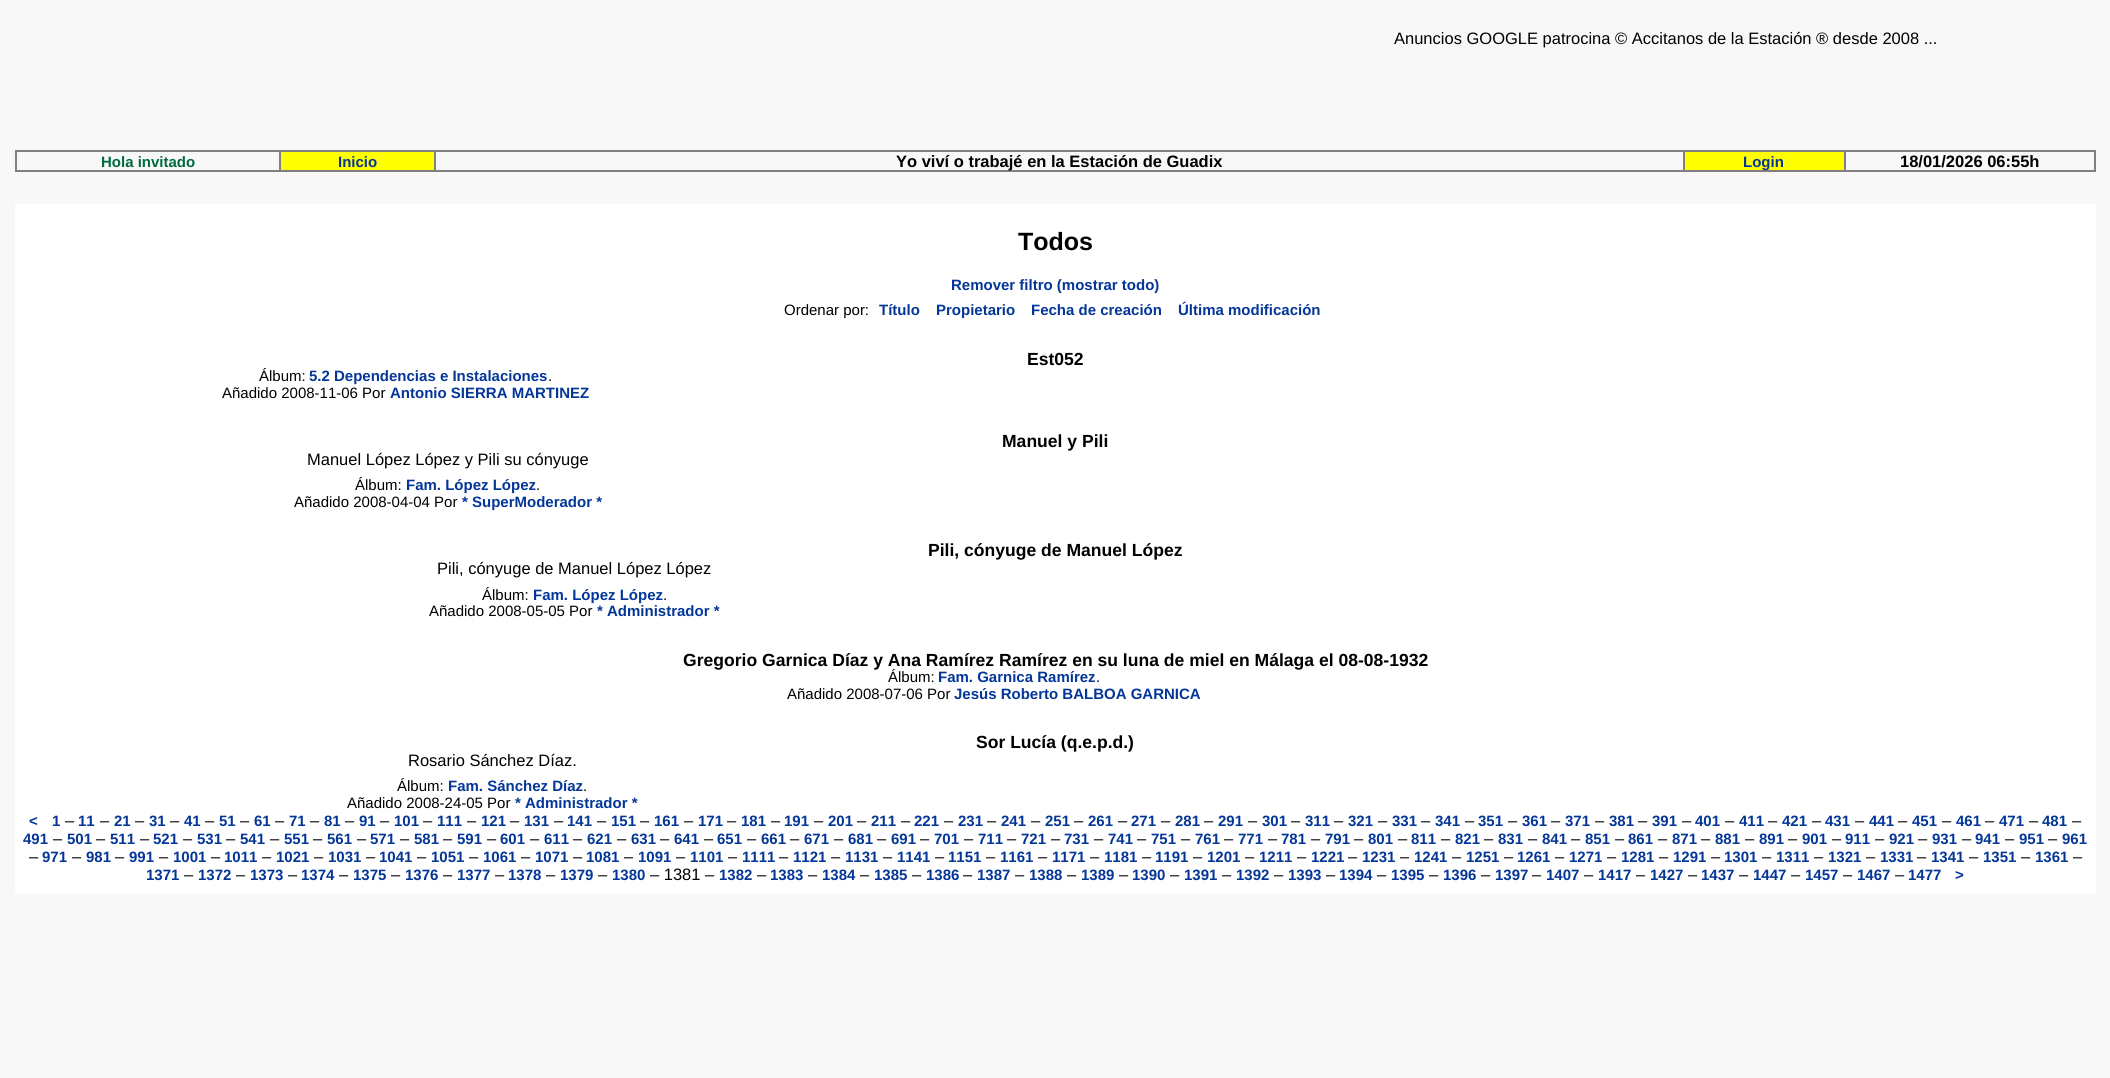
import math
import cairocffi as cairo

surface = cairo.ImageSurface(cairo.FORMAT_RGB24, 2110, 1078)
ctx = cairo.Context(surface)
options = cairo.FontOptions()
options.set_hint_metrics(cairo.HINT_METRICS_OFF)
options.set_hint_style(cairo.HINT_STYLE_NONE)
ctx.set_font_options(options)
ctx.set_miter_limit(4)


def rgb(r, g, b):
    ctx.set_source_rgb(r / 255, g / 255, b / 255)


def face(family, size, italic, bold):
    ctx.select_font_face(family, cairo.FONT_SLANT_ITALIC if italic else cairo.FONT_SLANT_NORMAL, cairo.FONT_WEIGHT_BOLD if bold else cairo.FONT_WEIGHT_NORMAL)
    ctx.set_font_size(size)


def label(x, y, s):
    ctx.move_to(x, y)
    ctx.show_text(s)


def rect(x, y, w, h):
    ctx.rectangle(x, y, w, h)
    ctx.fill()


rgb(248, 248, 248)
ctx.paint()
face('Liberation Sans', 16.5, 0, 0)
rgb(0, 0, 0)
label(1394, 44, 'Anuncios GOOGLE patrocina © Accitanos de la Estación ® desde 2008 ...')
rgb(128, 128, 128)
rect(15, 150, 2081, 2)
rect(2094, 150, 2, 21)
rect(15, 170, 2081, 2)
rect(15, 150, 2, 21)
face('Liberation Sans', 15, 0, 1)
rgb(0, 107, 63)
label(101, 167, 'Hola invitado')
rgb(255, 255, 0)
rect(281, 152, 153, 18)
rgb(128, 128, 128)
rect(279, 150, 2, 21)
rgb(4, 54, 152)
label(338, 167, 'Inicio')
rgb(128, 128, 128)
rect(434, 150, 2, 21)
face('Liberation Sans', 16.5, 0, 1)
rgb(0, 0, 0)
label(896, 167, 'Yo viví o trabajé en la Estación de Guadix')
rgb(255, 255, 0)
rect(1685, 152, 159, 18)
rgb(128, 128, 128)
rect(1683, 150, 2, 21)
face('Liberation Sans', 15, 0, 1)
rgb(4, 54, 152)
label(1743, 167, 'Login')
rgb(128, 128, 128)
rect(1844, 150, 2, 21)
face('Liberation Sans', 16.5, 0, 1)
rgb(0, 0, 0)
label(1900, 167, '18/01/2026 06:55h')
rgb(255, 255, 255)
rect(15, 204, 2081, 690)
face('Liberation Sans', 25, 0, 1)
rgb(0, 0, 0)
label(1018, 250, 'Todos')
face('Liberation Sans', 15, 0, 1)
rgb(4, 54, 152)
label(951, 290, 'Remover filtro (mostrar todo)')
face('Liberation Sans', 15, 0, 0)
rgb(0, 0, 0)
label(784, 315, 'Ordenar por:')
face('Liberation Sans', 15, 0, 1)
rgb(4, 54, 152)
label(879, 315, 'Título')
label(936, 315, 'Propietario')
label(1031, 315, 'Fecha de creación')
label(1178, 315, 'Última modificación')
face('Liberation Sans', 17.55, 0, 1)
rgb(0, 0, 0)
label(1027, 365, 'Est052')
face('Liberation Sans', 15, 0, 0)
label(259, 381, 'Álbum:')
face('Liberation Sans', 15, 0, 1)
rgb(4, 54, 152)
label(309, 381, '5.2 Dependencias e Instalaciones')
face('Liberation Sans', 15, 0, 0)
rgb(0, 0, 0)
label(548, 381, '.')
label(222, 398, 'Añadido 2008-11-06 Por')
face('Liberation Sans', 15, 0, 1)
rgb(4, 54, 152)
label(390, 398, 'Antonio SIERRA MARTINEZ')
face('Liberation Sans', 17.55, 0, 1)
rgb(0, 0, 0)
label(1002, 447, 'Manuel y Pili')
face('Liberation Sans', 16.5, 0, 0)
label(307, 465, 'Manuel López López y Pili su cónyuge')
face('Liberation Sans', 15, 0, 0)
label(355, 490, 'Álbum:')
face('Liberation Sans', 15, 0, 1)
rgb(4, 54, 152)
label(406, 490, 'Fam. López López')
face('Liberation Sans', 15, 0, 0)
rgb(0, 0, 0)
label(536, 490, '.')
label(294, 507, 'Añadido 2008-04-04 Por')
face('Liberation Sans', 15, 0, 1)
rgb(4, 54, 152)
label(462, 507, '* SuperModerador *')
face('Liberation Sans', 17.55, 0, 1)
rgb(0, 0, 0)
label(928, 556, 'Pili, cónyuge de Manuel López')
face('Liberation Sans', 16.5, 0, 0)
label(437, 574, 'Pili, cónyuge de Manuel López López')
face('Liberation Sans', 15, 0, 0)
label(482, 600, 'Álbum:')
face('Liberation Sans', 15, 0, 1)
rgb(4, 54, 152)
label(533, 600, 'Fam. López López')
face('Liberation Sans', 15, 0, 0)
rgb(0, 0, 0)
label(663, 600, '.')
label(429, 616, 'Añadido 2008-05-05 Por')
face('Liberation Sans', 15, 0, 1)
rgb(4, 54, 152)
label(597, 616, '* Administrador *')
face('Liberation Sans', 17.55, 0, 1)
rgb(0, 0, 0)
label(683, 666, 'Gregorio Garnica Díaz y Ana Ramírez Ramírez en su luna de miel en Málaga el 08-08-1932')
face('Liberation Sans', 15, 0, 0)
label(888, 682, 'Álbum:')
face('Liberation Sans', 15, 0, 1)
rgb(4, 54, 152)
label(938, 682, 'Fam. Garnica Ramírez')
face('Liberation Sans', 15, 0, 0)
rgb(0, 0, 0)
label(1096, 682, '.')
label(787, 699, 'Añadido 2008-07-06 Por')
face('Liberation Sans', 15, 0, 1)
rgb(4, 54, 152)
label(954, 699, 'Jesús Roberto BALBOA GARNICA')
face('Liberation Sans', 17.55, 0, 1)
rgb(0, 0, 0)
label(976, 748, 'Sor Lucía (q.e.p.d.)')
face('Liberation Sans', 16.5, 0, 0)
label(408, 766, 'Rosario Sánchez Díaz.')
face('Liberation Sans', 15, 0, 0)
label(397, 791, 'Álbum:')
face('Liberation Sans', 15, 0, 1)
rgb(4, 54, 152)
label(448, 791, 'Fam. Sánchez Díaz')
face('Liberation Sans', 15, 0, 0)
rgb(0, 0, 0)
label(583, 791, '.')
label(347, 808, 'Añadido 2008-24-05 Por')
face('Liberation Sans', 15, 0, 1)
rgb(4, 54, 152)
label(515, 808, '* Administrador *')
label(29, 826, '<')
label(52, 826, '1')
face('Liberation Sans', 16.5, 0, 0)
rgb(0, 0, 0)
label(65, 826, '–')
face('Liberation Sans', 15, 0, 1)
rgb(4, 54, 152)
label(78, 826, '11')
face('Liberation Sans', 16.5, 0, 0)
rgb(0, 0, 0)
label(100, 826, '–')
face('Liberation Sans', 15, 0, 1)
rgb(4, 54, 152)
label(114, 826, '21')
face('Liberation Sans', 16.5, 0, 0)
rgb(0, 0, 0)
label(135, 826, '–')
face('Liberation Sans', 15, 0, 1)
rgb(4, 54, 152)
label(149, 826, '31')
face('Liberation Sans', 16.5, 0, 0)
rgb(0, 0, 0)
label(170, 826, '–')
face('Liberation Sans', 15, 0, 1)
rgb(4, 54, 152)
label(184, 826, '41')
face('Liberation Sans', 16.5, 0, 0)
rgb(0, 0, 0)
label(205, 826, '–')
face('Liberation Sans', 15, 0, 1)
rgb(4, 54, 152)
label(219, 826, '51')
face('Liberation Sans', 16.5, 0, 0)
rgb(0, 0, 0)
label(240, 826, '–')
face('Liberation Sans', 15, 0, 1)
rgb(4, 54, 152)
label(254, 826, '61')
face('Liberation Sans', 16.5, 0, 0)
rgb(0, 0, 0)
label(275, 826, '–')
face('Liberation Sans', 15, 0, 1)
rgb(4, 54, 152)
label(289, 826, '71')
face('Liberation Sans', 16.5, 0, 0)
rgb(0, 0, 0)
label(310, 826, '–')
face('Liberation Sans', 15, 0, 1)
rgb(4, 54, 152)
label(324, 826, '81')
face('Liberation Sans', 16.5, 0, 0)
rgb(0, 0, 0)
label(345, 826, '–')
face('Liberation Sans', 15, 0, 1)
rgb(4, 54, 152)
label(359, 826, '91')
face('Liberation Sans', 16.5, 0, 0)
rgb(0, 0, 0)
label(380, 826, '–')
face('Liberation Sans', 15, 0, 1)
rgb(4, 54, 152)
label(394, 826, '101')
face('Liberation Sans', 16.5, 0, 0)
rgb(0, 0, 0)
label(423, 826, '–')
face('Liberation Sans', 15, 0, 1)
rgb(4, 54, 152)
label(437, 826, '111')
face('Liberation Sans', 16.5, 0, 0)
rgb(0, 0, 0)
label(467, 826, '–')
face('Liberation Sans', 15, 0, 1)
rgb(4, 54, 152)
label(481, 826, '121')
face('Liberation Sans', 16.5, 0, 0)
rgb(0, 0, 0)
label(510, 826, '–')
face('Liberation Sans', 15, 0, 1)
rgb(4, 54, 152)
label(524, 826, '131')
face('Liberation Sans', 16.5, 0, 0)
rgb(0, 0, 0)
label(554, 826, '–')
face('Liberation Sans', 15, 0, 1)
rgb(4, 54, 152)
label(567, 826, '141')
face('Liberation Sans', 16.5, 0, 0)
rgb(0, 0, 0)
label(597, 826, '–')
face('Liberation Sans', 15, 0, 1)
rgb(4, 54, 152)
label(611, 826, '151')
face('Liberation Sans', 16.5, 0, 0)
rgb(0, 0, 0)
label(640, 826, '–')
face('Liberation Sans', 15, 0, 1)
rgb(4, 54, 152)
label(654, 826, '161')
face('Liberation Sans', 16.5, 0, 0)
rgb(0, 0, 0)
label(684, 826, '–')
face('Liberation Sans', 15, 0, 1)
rgb(4, 54, 152)
label(698, 826, '171')
face('Liberation Sans', 16.5, 0, 0)
rgb(0, 0, 0)
label(727, 826, '–')
face('Liberation Sans', 15, 0, 1)
rgb(4, 54, 152)
label(741, 826, '181')
face('Liberation Sans', 16.5, 0, 0)
rgb(0, 0, 0)
label(771, 826, '–')
face('Liberation Sans', 15, 0, 1)
rgb(4, 54, 152)
label(784, 826, '191')
face('Liberation Sans', 16.5, 0, 0)
rgb(0, 0, 0)
label(814, 826, '–')
face('Liberation Sans', 15, 0, 1)
rgb(4, 54, 152)
label(828, 826, '201')
face('Liberation Sans', 16.5, 0, 0)
rgb(0, 0, 0)
label(857, 826, '–')
face('Liberation Sans', 15, 0, 1)
rgb(4, 54, 152)
label(871, 826, '211')
face('Liberation Sans', 16.5, 0, 0)
rgb(0, 0, 0)
label(901, 826, '–')
face('Liberation Sans', 15, 0, 1)
rgb(4, 54, 152)
label(914, 826, '221')
face('Liberation Sans', 16.5, 0, 0)
rgb(0, 0, 0)
label(944, 826, '–')
face('Liberation Sans', 15, 0, 1)
rgb(4, 54, 152)
label(958, 826, '231')
face('Liberation Sans', 16.5, 0, 0)
rgb(0, 0, 0)
label(987, 826, '–')
face('Liberation Sans', 15, 0, 1)
rgb(4, 54, 152)
label(1001, 826, '241')
face('Liberation Sans', 16.5, 0, 0)
rgb(0, 0, 0)
label(1031, 826, '–')
face('Liberation Sans', 15, 0, 1)
rgb(4, 54, 152)
label(1045, 826, '251')
face('Liberation Sans', 16.5, 0, 0)
rgb(0, 0, 0)
label(1074, 826, '–')
face('Liberation Sans', 15, 0, 1)
rgb(4, 54, 152)
label(1088, 826, '261')
face('Liberation Sans', 16.5, 0, 0)
rgb(0, 0, 0)
label(1118, 826, '–')
face('Liberation Sans', 15, 0, 1)
rgb(4, 54, 152)
label(1131, 826, '271')
face('Liberation Sans', 16.5, 0, 0)
rgb(0, 0, 0)
label(1161, 826, '–')
face('Liberation Sans', 15, 0, 1)
rgb(4, 54, 152)
label(1175, 826, '281')
face('Liberation Sans', 16.5, 0, 0)
rgb(0, 0, 0)
label(1204, 826, '–')
face('Liberation Sans', 15, 0, 1)
rgb(4, 54, 152)
label(1218, 826, '291')
face('Liberation Sans', 16.5, 0, 0)
rgb(0, 0, 0)
label(1248, 826, '–')
face('Liberation Sans', 15, 0, 1)
rgb(4, 54, 152)
label(1262, 826, '301')
face('Liberation Sans', 16.5, 0, 0)
rgb(0, 0, 0)
label(1291, 826, '–')
face('Liberation Sans', 15, 0, 1)
rgb(4, 54, 152)
label(1305, 826, '311')
face('Liberation Sans', 16.5, 0, 0)
rgb(0, 0, 0)
label(1334, 826, '–')
face('Liberation Sans', 15, 0, 1)
rgb(4, 54, 152)
label(1348, 826, '321')
face('Liberation Sans', 16.5, 0, 0)
rgb(0, 0, 0)
label(1378, 826, '–')
face('Liberation Sans', 15, 0, 1)
rgb(4, 54, 152)
label(1392, 826, '331')
face('Liberation Sans', 16.5, 0, 0)
rgb(0, 0, 0)
label(1421, 826, '–')
face('Liberation Sans', 15, 0, 1)
rgb(4, 54, 152)
label(1435, 826, '341')
face('Liberation Sans', 16.5, 0, 0)
rgb(0, 0, 0)
label(1465, 826, '–')
face('Liberation Sans', 15, 0, 1)
rgb(4, 54, 152)
label(1478, 826, '351')
face('Liberation Sans', 16.5, 0, 0)
rgb(0, 0, 0)
label(1508, 826, '–')
face('Liberation Sans', 15, 0, 1)
rgb(4, 54, 152)
label(1522, 826, '361')
face('Liberation Sans', 16.5, 0, 0)
rgb(0, 0, 0)
label(1551, 826, '–')
face('Liberation Sans', 15, 0, 1)
rgb(4, 54, 152)
label(1565, 826, '371')
face('Liberation Sans', 16.5, 0, 0)
rgb(0, 0, 0)
label(1595, 826, '–')
face('Liberation Sans', 15, 0, 1)
rgb(4, 54, 152)
label(1609, 826, '381')
face('Liberation Sans', 16.5, 0, 0)
rgb(0, 0, 0)
label(1638, 826, '–')
face('Liberation Sans', 15, 0, 1)
rgb(4, 54, 152)
label(1652, 826, '391')
face('Liberation Sans', 16.5, 0, 0)
rgb(0, 0, 0)
label(1682, 826, '–')
face('Liberation Sans', 15, 0, 1)
rgb(4, 54, 152)
label(1695, 826, '401')
face('Liberation Sans', 16.5, 0, 0)
rgb(0, 0, 0)
label(1725, 826, '–')
face('Liberation Sans', 15, 0, 1)
rgb(4, 54, 152)
label(1739, 826, '411')
face('Liberation Sans', 16.5, 0, 0)
rgb(0, 0, 0)
label(1768, 826, '–')
face('Liberation Sans', 15, 0, 1)
rgb(4, 54, 152)
label(1782, 826, '421')
face('Liberation Sans', 16.5, 0, 0)
rgb(0, 0, 0)
label(1812, 826, '–')
face('Liberation Sans', 15, 0, 1)
rgb(4, 54, 152)
label(1825, 826, '431')
face('Liberation Sans', 16.5, 0, 0)
rgb(0, 0, 0)
label(1855, 826, '–')
face('Liberation Sans', 15, 0, 1)
rgb(4, 54, 152)
label(1869, 826, '441')
face('Liberation Sans', 16.5, 0, 0)
rgb(0, 0, 0)
label(1898, 826, '–')
face('Liberation Sans', 15, 0, 1)
rgb(4, 54, 152)
label(1912, 826, '451')
face('Liberation Sans', 16.5, 0, 0)
rgb(0, 0, 0)
label(1942, 826, '–')
face('Liberation Sans', 15, 0, 1)
rgb(4, 54, 152)
label(1956, 826, '461')
face('Liberation Sans', 16.5, 0, 0)
rgb(0, 0, 0)
label(1985, 826, '–')
face('Liberation Sans', 15, 0, 1)
rgb(4, 54, 152)
label(1999, 826, '471')
face('Liberation Sans', 16.5, 0, 0)
rgb(0, 0, 0)
label(2029, 826, '–')
face('Liberation Sans', 15, 0, 1)
rgb(4, 54, 152)
label(2042, 826, '481')
face('Liberation Sans', 16.5, 0, 0)
rgb(0, 0, 0)
label(2072, 826, '–')
face('Liberation Sans', 15, 0, 1)
rgb(4, 54, 152)
label(23, 844, '491')
face('Liberation Sans', 16.5, 0, 0)
rgb(0, 0, 0)
label(53, 844, '–')
face('Liberation Sans', 15, 0, 1)
rgb(4, 54, 152)
label(67, 844, '501')
face('Liberation Sans', 16.5, 0, 0)
rgb(0, 0, 0)
label(96, 844, '–')
face('Liberation Sans', 15, 0, 1)
rgb(4, 54, 152)
label(110, 844, '511')
face('Liberation Sans', 16.5, 0, 0)
rgb(0, 0, 0)
label(140, 844, '–')
face('Liberation Sans', 15, 0, 1)
rgb(4, 54, 152)
label(153, 844, '521')
face('Liberation Sans', 16.5, 0, 0)
rgb(0, 0, 0)
label(183, 844, '–')
face('Liberation Sans', 15, 0, 1)
rgb(4, 54, 152)
label(197, 844, '531')
face('Liberation Sans', 16.5, 0, 0)
rgb(0, 0, 0)
label(226, 844, '–')
face('Liberation Sans', 15, 0, 1)
rgb(4, 54, 152)
label(240, 844, '541')
face('Liberation Sans', 16.5, 0, 0)
rgb(0, 0, 0)
label(270, 844, '–')
face('Liberation Sans', 15, 0, 1)
rgb(4, 54, 152)
label(284, 844, '551')
face('Liberation Sans', 16.5, 0, 0)
rgb(0, 0, 0)
label(313, 844, '–')
face('Liberation Sans', 15, 0, 1)
rgb(4, 54, 152)
label(327, 844, '561')
face('Liberation Sans', 16.5, 0, 0)
rgb(0, 0, 0)
label(357, 844, '–')
face('Liberation Sans', 15, 0, 1)
rgb(4, 54, 152)
label(370, 844, '571')
face('Liberation Sans', 16.5, 0, 0)
rgb(0, 0, 0)
label(400, 844, '–')
face('Liberation Sans', 15, 0, 1)
rgb(4, 54, 152)
label(414, 844, '581')
face('Liberation Sans', 16.5, 0, 0)
rgb(0, 0, 0)
label(443, 844, '–')
face('Liberation Sans', 15, 0, 1)
rgb(4, 54, 152)
label(457, 844, '591')
face('Liberation Sans', 16.5, 0, 0)
rgb(0, 0, 0)
label(487, 844, '–')
face('Liberation Sans', 15, 0, 1)
rgb(4, 54, 152)
label(500, 844, '601')
face('Liberation Sans', 16.5, 0, 0)
rgb(0, 0, 0)
label(530, 844, '–')
face('Liberation Sans', 15, 0, 1)
rgb(4, 54, 152)
label(544, 844, '611')
face('Liberation Sans', 16.5, 0, 0)
rgb(0, 0, 0)
label(573, 844, '–')
face('Liberation Sans', 15, 0, 1)
rgb(4, 54, 152)
label(587, 844, '621')
face('Liberation Sans', 16.5, 0, 0)
rgb(0, 0, 0)
label(617, 844, '–')
face('Liberation Sans', 15, 0, 1)
rgb(4, 54, 152)
label(631, 844, '631')
face('Liberation Sans', 16.5, 0, 0)
rgb(0, 0, 0)
label(660, 844, '–')
face('Liberation Sans', 15, 0, 1)
rgb(4, 54, 152)
label(674, 844, '641')
face('Liberation Sans', 16.5, 0, 0)
rgb(0, 0, 0)
label(704, 844, '–')
face('Liberation Sans', 15, 0, 1)
rgb(4, 54, 152)
label(717, 844, '651')
face('Liberation Sans', 16.5, 0, 0)
rgb(0, 0, 0)
label(747, 844, '–')
face('Liberation Sans', 15, 0, 1)
rgb(4, 54, 152)
label(761, 844, '661')
face('Liberation Sans', 16.5, 0, 0)
rgb(0, 0, 0)
label(790, 844, '–')
face('Liberation Sans', 15, 0, 1)
rgb(4, 54, 152)
label(804, 844, '671')
face('Liberation Sans', 16.5, 0, 0)
rgb(0, 0, 0)
label(834, 844, '–')
face('Liberation Sans', 15, 0, 1)
rgb(4, 54, 152)
label(848, 844, '681')
face('Liberation Sans', 16.5, 0, 0)
rgb(0, 0, 0)
label(877, 844, '–')
face('Liberation Sans', 15, 0, 1)
rgb(4, 54, 152)
label(891, 844, '691')
face('Liberation Sans', 16.5, 0, 0)
rgb(0, 0, 0)
label(920, 844, '–')
face('Liberation Sans', 15, 0, 1)
rgb(4, 54, 152)
label(934, 844, '701')
face('Liberation Sans', 16.5, 0, 0)
rgb(0, 0, 0)
label(964, 844, '–')
face('Liberation Sans', 15, 0, 1)
rgb(4, 54, 152)
label(978, 844, '711')
face('Liberation Sans', 16.5, 0, 0)
rgb(0, 0, 0)
label(1007, 844, '–')
face('Liberation Sans', 15, 0, 1)
rgb(4, 54, 152)
label(1021, 844, '721')
face('Liberation Sans', 16.5, 0, 0)
rgb(0, 0, 0)
label(1051, 844, '–')
face('Liberation Sans', 15, 0, 1)
rgb(4, 54, 152)
label(1064, 844, '731')
face('Liberation Sans', 16.5, 0, 0)
rgb(0, 0, 0)
label(1094, 844, '–')
face('Liberation Sans', 15, 0, 1)
rgb(4, 54, 152)
label(1108, 844, '741')
face('Liberation Sans', 16.5, 0, 0)
rgb(0, 0, 0)
label(1137, 844, '–')
face('Liberation Sans', 15, 0, 1)
rgb(4, 54, 152)
label(1151, 844, '751')
face('Liberation Sans', 16.5, 0, 0)
rgb(0, 0, 0)
label(1181, 844, '–')
face('Liberation Sans', 15, 0, 1)
rgb(4, 54, 152)
label(1195, 844, '761')
face('Liberation Sans', 16.5, 0, 0)
rgb(0, 0, 0)
label(1224, 844, '–')
face('Liberation Sans', 15, 0, 1)
rgb(4, 54, 152)
label(1238, 844, '771')
face('Liberation Sans', 16.5, 0, 0)
rgb(0, 0, 0)
label(1268, 844, '–')
face('Liberation Sans', 15, 0, 1)
rgb(4, 54, 152)
label(1281, 844, '781')
face('Liberation Sans', 16.5, 0, 0)
rgb(0, 0, 0)
label(1311, 844, '–')
face('Liberation Sans', 15, 0, 1)
rgb(4, 54, 152)
label(1325, 844, '791')
face('Liberation Sans', 16.5, 0, 0)
rgb(0, 0, 0)
label(1354, 844, '–')
face('Liberation Sans', 15, 0, 1)
rgb(4, 54, 152)
label(1368, 844, '801')
face('Liberation Sans', 16.5, 0, 0)
rgb(0, 0, 0)
label(1398, 844, '–')
face('Liberation Sans', 15, 0, 1)
rgb(4, 54, 152)
label(1411, 844, '811')
face('Liberation Sans', 16.5, 0, 0)
rgb(0, 0, 0)
label(1441, 844, '–')
face('Liberation Sans', 15, 0, 1)
rgb(4, 54, 152)
label(1455, 844, '821')
face('Liberation Sans', 16.5, 0, 0)
rgb(0, 0, 0)
label(1484, 844, '–')
face('Liberation Sans', 15, 0, 1)
rgb(4, 54, 152)
label(1498, 844, '831')
face('Liberation Sans', 16.5, 0, 0)
rgb(0, 0, 0)
label(1528, 844, '–')
face('Liberation Sans', 15, 0, 1)
rgb(4, 54, 152)
label(1542, 844, '841')
face('Liberation Sans', 16.5, 0, 0)
rgb(0, 0, 0)
label(1571, 844, '–')
face('Liberation Sans', 15, 0, 1)
rgb(4, 54, 152)
label(1585, 844, '851')
face('Liberation Sans', 16.5, 0, 0)
rgb(0, 0, 0)
label(1615, 844, '–')
face('Liberation Sans', 15, 0, 1)
rgb(4, 54, 152)
label(1628, 844, '861')
face('Liberation Sans', 16.5, 0, 0)
rgb(0, 0, 0)
label(1658, 844, '–')
face('Liberation Sans', 15, 0, 1)
rgb(4, 54, 152)
label(1672, 844, '871')
face('Liberation Sans', 16.5, 0, 0)
rgb(0, 0, 0)
label(1701, 844, '–')
face('Liberation Sans', 15, 0, 1)
rgb(4, 54, 152)
label(1715, 844, '881')
face('Liberation Sans', 16.5, 0, 0)
rgb(0, 0, 0)
label(1745, 844, '–')
face('Liberation Sans', 15, 0, 1)
rgb(4, 54, 152)
label(1759, 844, '891')
face('Liberation Sans', 16.5, 0, 0)
rgb(0, 0, 0)
label(1788, 844, '–')
face('Liberation Sans', 15, 0, 1)
rgb(4, 54, 152)
label(1802, 844, '901')
face('Liberation Sans', 16.5, 0, 0)
rgb(0, 0, 0)
label(1832, 844, '–')
face('Liberation Sans', 15, 0, 1)
rgb(4, 54, 152)
label(1845, 844, '911')
face('Liberation Sans', 16.5, 0, 0)
rgb(0, 0, 0)
label(1875, 844, '–')
face('Liberation Sans', 15, 0, 1)
rgb(4, 54, 152)
label(1889, 844, '921')
face('Liberation Sans', 16.5, 0, 0)
rgb(0, 0, 0)
label(1918, 844, '–')
face('Liberation Sans', 15, 0, 1)
rgb(4, 54, 152)
label(1932, 844, '931')
face('Liberation Sans', 16.5, 0, 0)
rgb(0, 0, 0)
label(1962, 844, '–')
face('Liberation Sans', 15, 0, 1)
rgb(4, 54, 152)
label(1975, 844, '941')
face('Liberation Sans', 16.5, 0, 0)
rgb(0, 0, 0)
label(2005, 844, '–')
face('Liberation Sans', 15, 0, 1)
rgb(4, 54, 152)
label(2019, 844, '951')
face('Liberation Sans', 16.5, 0, 0)
rgb(0, 0, 0)
label(2048, 844, '–')
face('Liberation Sans', 15, 0, 1)
rgb(4, 54, 152)
label(2062, 844, '961')
face('Liberation Sans', 16.5, 0, 0)
rgb(0, 0, 0)
label(29, 862, '–')
face('Liberation Sans', 15, 0, 1)
rgb(4, 54, 152)
label(42, 862, '971')
face('Liberation Sans', 16.5, 0, 0)
rgb(0, 0, 0)
label(72, 862, '–')
face('Liberation Sans', 15, 0, 1)
rgb(4, 54, 152)
label(86, 862, '981')
face('Liberation Sans', 16.5, 0, 0)
rgb(0, 0, 0)
label(115, 862, '–')
face('Liberation Sans', 15, 0, 1)
rgb(4, 54, 152)
label(129, 862, '991')
face('Liberation Sans', 16.5, 0, 0)
rgb(0, 0, 0)
label(159, 862, '–')
face('Liberation Sans', 15, 0, 1)
rgb(4, 54, 152)
label(173, 862, '1001')
face('Liberation Sans', 16.5, 0, 0)
rgb(0, 0, 0)
label(211, 862, '–')
face('Liberation Sans', 15, 0, 1)
rgb(4, 54, 152)
label(224, 862, '1011')
face('Liberation Sans', 16.5, 0, 0)
rgb(0, 0, 0)
label(262, 862, '–')
face('Liberation Sans', 15, 0, 1)
rgb(4, 54, 152)
label(276, 862, '1021')
face('Liberation Sans', 16.5, 0, 0)
rgb(0, 0, 0)
label(314, 862, '–')
face('Liberation Sans', 15, 0, 1)
rgb(4, 54, 152)
label(328, 862, '1031')
face('Liberation Sans', 16.5, 0, 0)
rgb(0, 0, 0)
label(366, 862, '–')
face('Liberation Sans', 15, 0, 1)
rgb(4, 54, 152)
label(379, 862, '1041')
face('Liberation Sans', 16.5, 0, 0)
rgb(0, 0, 0)
label(417, 862, '–')
face('Liberation Sans', 15, 0, 1)
rgb(4, 54, 152)
label(431, 862, '1051')
face('Liberation Sans', 16.5, 0, 0)
rgb(0, 0, 0)
label(469, 862, '–')
face('Liberation Sans', 15, 0, 1)
rgb(4, 54, 152)
label(483, 862, '1061')
face('Liberation Sans', 16.5, 0, 0)
rgb(0, 0, 0)
label(521, 862, '–')
face('Liberation Sans', 15, 0, 1)
rgb(4, 54, 152)
label(535, 862, '1071')
face('Liberation Sans', 16.5, 0, 0)
rgb(0, 0, 0)
label(573, 862, '–')
face('Liberation Sans', 15, 0, 1)
rgb(4, 54, 152)
label(586, 862, '1081')
face('Liberation Sans', 16.5, 0, 0)
rgb(0, 0, 0)
label(624, 862, '–')
face('Liberation Sans', 15, 0, 1)
rgb(4, 54, 152)
label(638, 862, '1091')
face('Liberation Sans', 16.5, 0, 0)
rgb(0, 0, 0)
label(676, 862, '–')
face('Liberation Sans', 15, 0, 1)
rgb(4, 54, 152)
label(690, 862, '1101')
face('Liberation Sans', 16.5, 0, 0)
rgb(0, 0, 0)
label(728, 862, '–')
face('Liberation Sans', 15, 0, 1)
rgb(4, 54, 152)
label(742, 862, '1111')
face('Liberation Sans', 16.5, 0, 0)
rgb(0, 0, 0)
label(779, 862, '–')
face('Liberation Sans', 15, 0, 1)
rgb(4, 54, 152)
label(793, 862, '1121')
face('Liberation Sans', 16.5, 0, 0)
rgb(0, 0, 0)
label(831, 862, '–')
face('Liberation Sans', 15, 0, 1)
rgb(4, 54, 152)
label(845, 862, '1131')
face('Liberation Sans', 16.5, 0, 0)
rgb(0, 0, 0)
label(883, 862, '–')
face('Liberation Sans', 15, 0, 1)
rgb(4, 54, 152)
label(897, 862, '1141')
face('Liberation Sans', 16.5, 0, 0)
rgb(0, 0, 0)
label(935, 862, '–')
face('Liberation Sans', 15, 0, 1)
rgb(4, 54, 152)
label(948, 862, '1151')
face('Liberation Sans', 16.5, 0, 0)
rgb(0, 0, 0)
label(986, 862, '–')
face('Liberation Sans', 15, 0, 1)
rgb(4, 54, 152)
label(1000, 862, '1161')
face('Liberation Sans', 16.5, 0, 0)
rgb(0, 0, 0)
label(1038, 862, '–')
face('Liberation Sans', 15, 0, 1)
rgb(4, 54, 152)
label(1052, 862, '1171')
face('Liberation Sans', 16.5, 0, 0)
rgb(0, 0, 0)
label(1090, 862, '–')
face('Liberation Sans', 15, 0, 1)
rgb(4, 54, 152)
label(1104, 862, '1181')
face('Liberation Sans', 16.5, 0, 0)
rgb(0, 0, 0)
label(1142, 862, '–')
face('Liberation Sans', 15, 0, 1)
rgb(4, 54, 152)
label(1155, 862, '1191')
face('Liberation Sans', 16.5, 0, 0)
rgb(0, 0, 0)
label(1193, 862, '–')
face('Liberation Sans', 15, 0, 1)
rgb(4, 54, 152)
label(1207, 862, '1201')
face('Liberation Sans', 16.5, 0, 0)
rgb(0, 0, 0)
label(1245, 862, '–')
face('Liberation Sans', 15, 0, 1)
rgb(4, 54, 152)
label(1259, 862, '1211')
face('Liberation Sans', 16.5, 0, 0)
rgb(0, 0, 0)
label(1297, 862, '–')
face('Liberation Sans', 15, 0, 1)
rgb(4, 54, 152)
label(1311, 862, '1221')
face('Liberation Sans', 16.5, 0, 0)
rgb(0, 0, 0)
label(1348, 862, '–')
face('Liberation Sans', 15, 0, 1)
rgb(4, 54, 152)
label(1362, 862, '1231')
face('Liberation Sans', 16.5, 0, 0)
rgb(0, 0, 0)
label(1400, 862, '–')
face('Liberation Sans', 15, 0, 1)
rgb(4, 54, 152)
label(1414, 862, '1241')
face('Liberation Sans', 16.5, 0, 0)
rgb(0, 0, 0)
label(1452, 862, '–')
face('Liberation Sans', 15, 0, 1)
rgb(4, 54, 152)
label(1466, 862, '1251')
face('Liberation Sans', 16.5, 0, 0)
rgb(0, 0, 0)
label(1504, 862, '–')
face('Liberation Sans', 15, 0, 1)
rgb(4, 54, 152)
label(1517, 862, '1261')
face('Liberation Sans', 16.5, 0, 0)
rgb(0, 0, 0)
label(1555, 862, '–')
face('Liberation Sans', 15, 0, 1)
rgb(4, 54, 152)
label(1569, 862, '1271')
face('Liberation Sans', 16.5, 0, 0)
rgb(0, 0, 0)
label(1607, 862, '–')
face('Liberation Sans', 15, 0, 1)
rgb(4, 54, 152)
label(1621, 862, '1281')
face('Liberation Sans', 16.5, 0, 0)
rgb(0, 0, 0)
label(1659, 862, '–')
face('Liberation Sans', 15, 0, 1)
rgb(4, 54, 152)
label(1673, 862, '1291')
face('Liberation Sans', 16.5, 0, 0)
rgb(0, 0, 0)
label(1711, 862, '–')
face('Liberation Sans', 15, 0, 1)
rgb(4, 54, 152)
label(1724, 862, '1301')
face('Liberation Sans', 16.5, 0, 0)
rgb(0, 0, 0)
label(1762, 862, '–')
face('Liberation Sans', 15, 0, 1)
rgb(4, 54, 152)
label(1776, 862, '1311')
face('Liberation Sans', 16.5, 0, 0)
rgb(0, 0, 0)
label(1814, 862, '–')
face('Liberation Sans', 15, 0, 1)
rgb(4, 54, 152)
label(1828, 862, '1321')
face('Liberation Sans', 16.5, 0, 0)
rgb(0, 0, 0)
label(1866, 862, '–')
face('Liberation Sans', 15, 0, 1)
rgb(4, 54, 152)
label(1880, 862, '1331')
face('Liberation Sans', 16.5, 0, 0)
rgb(0, 0, 0)
label(1917, 862, '–')
face('Liberation Sans', 15, 0, 1)
rgb(4, 54, 152)
label(1931, 862, '1341')
face('Liberation Sans', 16.5, 0, 0)
rgb(0, 0, 0)
label(1969, 862, '–')
face('Liberation Sans', 15, 0, 1)
rgb(4, 54, 152)
label(1983, 862, '1351')
face('Liberation Sans', 16.5, 0, 0)
rgb(0, 0, 0)
label(2021, 862, '–')
face('Liberation Sans', 15, 0, 1)
rgb(4, 54, 152)
label(2035, 862, '1361')
face('Liberation Sans', 16.5, 0, 0)
rgb(0, 0, 0)
label(2073, 862, '–')
face('Liberation Sans', 15, 0, 1)
rgb(4, 54, 152)
label(146, 880, '1371')
face('Liberation Sans', 16.5, 0, 0)
rgb(0, 0, 0)
label(184, 880, '–')
face('Liberation Sans', 15, 0, 1)
rgb(4, 54, 152)
label(198, 880, '1372')
face('Liberation Sans', 16.5, 0, 0)
rgb(0, 0, 0)
label(236, 880, '–')
face('Liberation Sans', 15, 0, 1)
rgb(4, 54, 152)
label(250, 880, '1373')
face('Liberation Sans', 16.5, 0, 0)
rgb(0, 0, 0)
label(288, 880, '–')
face('Liberation Sans', 15, 0, 1)
rgb(4, 54, 152)
label(301, 880, '1374')
face('Liberation Sans', 16.5, 0, 0)
rgb(0, 0, 0)
label(339, 880, '–')
face('Liberation Sans', 15, 0, 1)
rgb(4, 54, 152)
label(353, 880, '1375')
face('Liberation Sans', 16.5, 0, 0)
rgb(0, 0, 0)
label(391, 880, '–')
face('Liberation Sans', 15, 0, 1)
rgb(4, 54, 152)
label(405, 880, '1376')
face('Liberation Sans', 16.5, 0, 0)
rgb(0, 0, 0)
label(443, 880, '–')
face('Liberation Sans', 15, 0, 1)
rgb(4, 54, 152)
label(457, 880, '1377')
face('Liberation Sans', 16.5, 0, 0)
rgb(0, 0, 0)
label(495, 880, '–')
face('Liberation Sans', 15, 0, 1)
rgb(4, 54, 152)
label(508, 880, '1378')
face('Liberation Sans', 16.5, 0, 0)
rgb(0, 0, 0)
label(546, 880, '–')
face('Liberation Sans', 15, 0, 1)
rgb(4, 54, 152)
label(560, 880, '1379')
face('Liberation Sans', 16.5, 0, 0)
rgb(0, 0, 0)
label(598, 880, '–')
face('Liberation Sans', 15, 0, 1)
rgb(4, 54, 152)
label(612, 880, '1380')
face('Liberation Sans', 16.5, 0, 0)
rgb(0, 0, 0)
label(650, 880, '– 1381 –')
face('Liberation Sans', 15, 0, 1)
rgb(4, 54, 152)
label(719, 880, '1382')
face('Liberation Sans', 16.5, 0, 0)
rgb(0, 0, 0)
label(757, 880, '–')
face('Liberation Sans', 15, 0, 1)
rgb(4, 54, 152)
label(770, 880, '1383')
face('Liberation Sans', 16.5, 0, 0)
rgb(0, 0, 0)
label(808, 880, '–')
face('Liberation Sans', 15, 0, 1)
rgb(4, 54, 152)
label(822, 880, '1384')
face('Liberation Sans', 16.5, 0, 0)
rgb(0, 0, 0)
label(860, 880, '–')
face('Liberation Sans', 15, 0, 1)
rgb(4, 54, 152)
label(874, 880, '1385')
face('Liberation Sans', 16.5, 0, 0)
rgb(0, 0, 0)
label(912, 880, '–')
face('Liberation Sans', 15, 0, 1)
rgb(4, 54, 152)
label(926, 880, '1386')
face('Liberation Sans', 16.5, 0, 0)
rgb(0, 0, 0)
label(963, 880, '–')
face('Liberation Sans', 15, 0, 1)
rgb(4, 54, 152)
label(977, 880, '1387')
face('Liberation Sans', 16.5, 0, 0)
rgb(0, 0, 0)
label(1015, 880, '–')
face('Liberation Sans', 15, 0, 1)
rgb(4, 54, 152)
label(1029, 880, '1388')
face('Liberation Sans', 16.5, 0, 0)
rgb(0, 0, 0)
label(1067, 880, '–')
face('Liberation Sans', 15, 0, 1)
rgb(4, 54, 152)
label(1081, 880, '1389')
face('Liberation Sans', 16.5, 0, 0)
rgb(0, 0, 0)
label(1119, 880, '–')
face('Liberation Sans', 15, 0, 1)
rgb(4, 54, 152)
label(1132, 880, '1390')
face('Liberation Sans', 16.5, 0, 0)
rgb(0, 0, 0)
label(1170, 880, '–')
face('Liberation Sans', 15, 0, 1)
rgb(4, 54, 152)
label(1184, 880, '1391')
face('Liberation Sans', 16.5, 0, 0)
rgb(0, 0, 0)
label(1222, 880, '–')
face('Liberation Sans', 15, 0, 1)
rgb(4, 54, 152)
label(1236, 880, '1392')
face('Liberation Sans', 16.5, 0, 0)
rgb(0, 0, 0)
label(1274, 880, '–')
face('Liberation Sans', 15, 0, 1)
rgb(4, 54, 152)
label(1288, 880, '1393')
face('Liberation Sans', 16.5, 0, 0)
rgb(0, 0, 0)
label(1326, 880, '–')
face('Liberation Sans', 15, 0, 1)
rgb(4, 54, 152)
label(1339, 880, '1394')
face('Liberation Sans', 16.5, 0, 0)
rgb(0, 0, 0)
label(1377, 880, '–')
face('Liberation Sans', 15, 0, 1)
rgb(4, 54, 152)
label(1391, 880, '1395')
face('Liberation Sans', 16.5, 0, 0)
rgb(0, 0, 0)
label(1429, 880, '–')
face('Liberation Sans', 15, 0, 1)
rgb(4, 54, 152)
label(1443, 880, '1396')
face('Liberation Sans', 16.5, 0, 0)
rgb(0, 0, 0)
label(1481, 880, '–')
face('Liberation Sans', 15, 0, 1)
rgb(4, 54, 152)
label(1495, 880, '1397')
face('Liberation Sans', 16.5, 0, 0)
rgb(0, 0, 0)
label(1532, 880, '–')
face('Liberation Sans', 15, 0, 1)
rgb(4, 54, 152)
label(1546, 880, '1407')
face('Liberation Sans', 16.5, 0, 0)
rgb(0, 0, 0)
label(1584, 880, '–')
face('Liberation Sans', 15, 0, 1)
rgb(4, 54, 152)
label(1598, 880, '1417')
face('Liberation Sans', 16.5, 0, 0)
rgb(0, 0, 0)
label(1636, 880, '–')
face('Liberation Sans', 15, 0, 1)
rgb(4, 54, 152)
label(1650, 880, '1427')
face('Liberation Sans', 16.5, 0, 0)
rgb(0, 0, 0)
label(1688, 880, '–')
face('Liberation Sans', 15, 0, 1)
rgb(4, 54, 152)
label(1701, 880, '1437')
face('Liberation Sans', 16.5, 0, 0)
rgb(0, 0, 0)
label(1739, 880, '–')
face('Liberation Sans', 15, 0, 1)
rgb(4, 54, 152)
label(1753, 880, '1447')
face('Liberation Sans', 16.5, 0, 0)
rgb(0, 0, 0)
label(1791, 880, '–')
face('Liberation Sans', 15, 0, 1)
rgb(4, 54, 152)
label(1805, 880, '1457')
face('Liberation Sans', 16.5, 0, 0)
rgb(0, 0, 0)
label(1843, 880, '–')
face('Liberation Sans', 15, 0, 1)
rgb(4, 54, 152)
label(1857, 880, '1467')
face('Liberation Sans', 16.5, 0, 0)
rgb(0, 0, 0)
label(1895, 880, '–')
face('Liberation Sans', 15, 0, 1)
rgb(4, 54, 152)
label(1908, 880, '1477')
label(1955, 880, '>')
surface.write_to_png('render.png')
